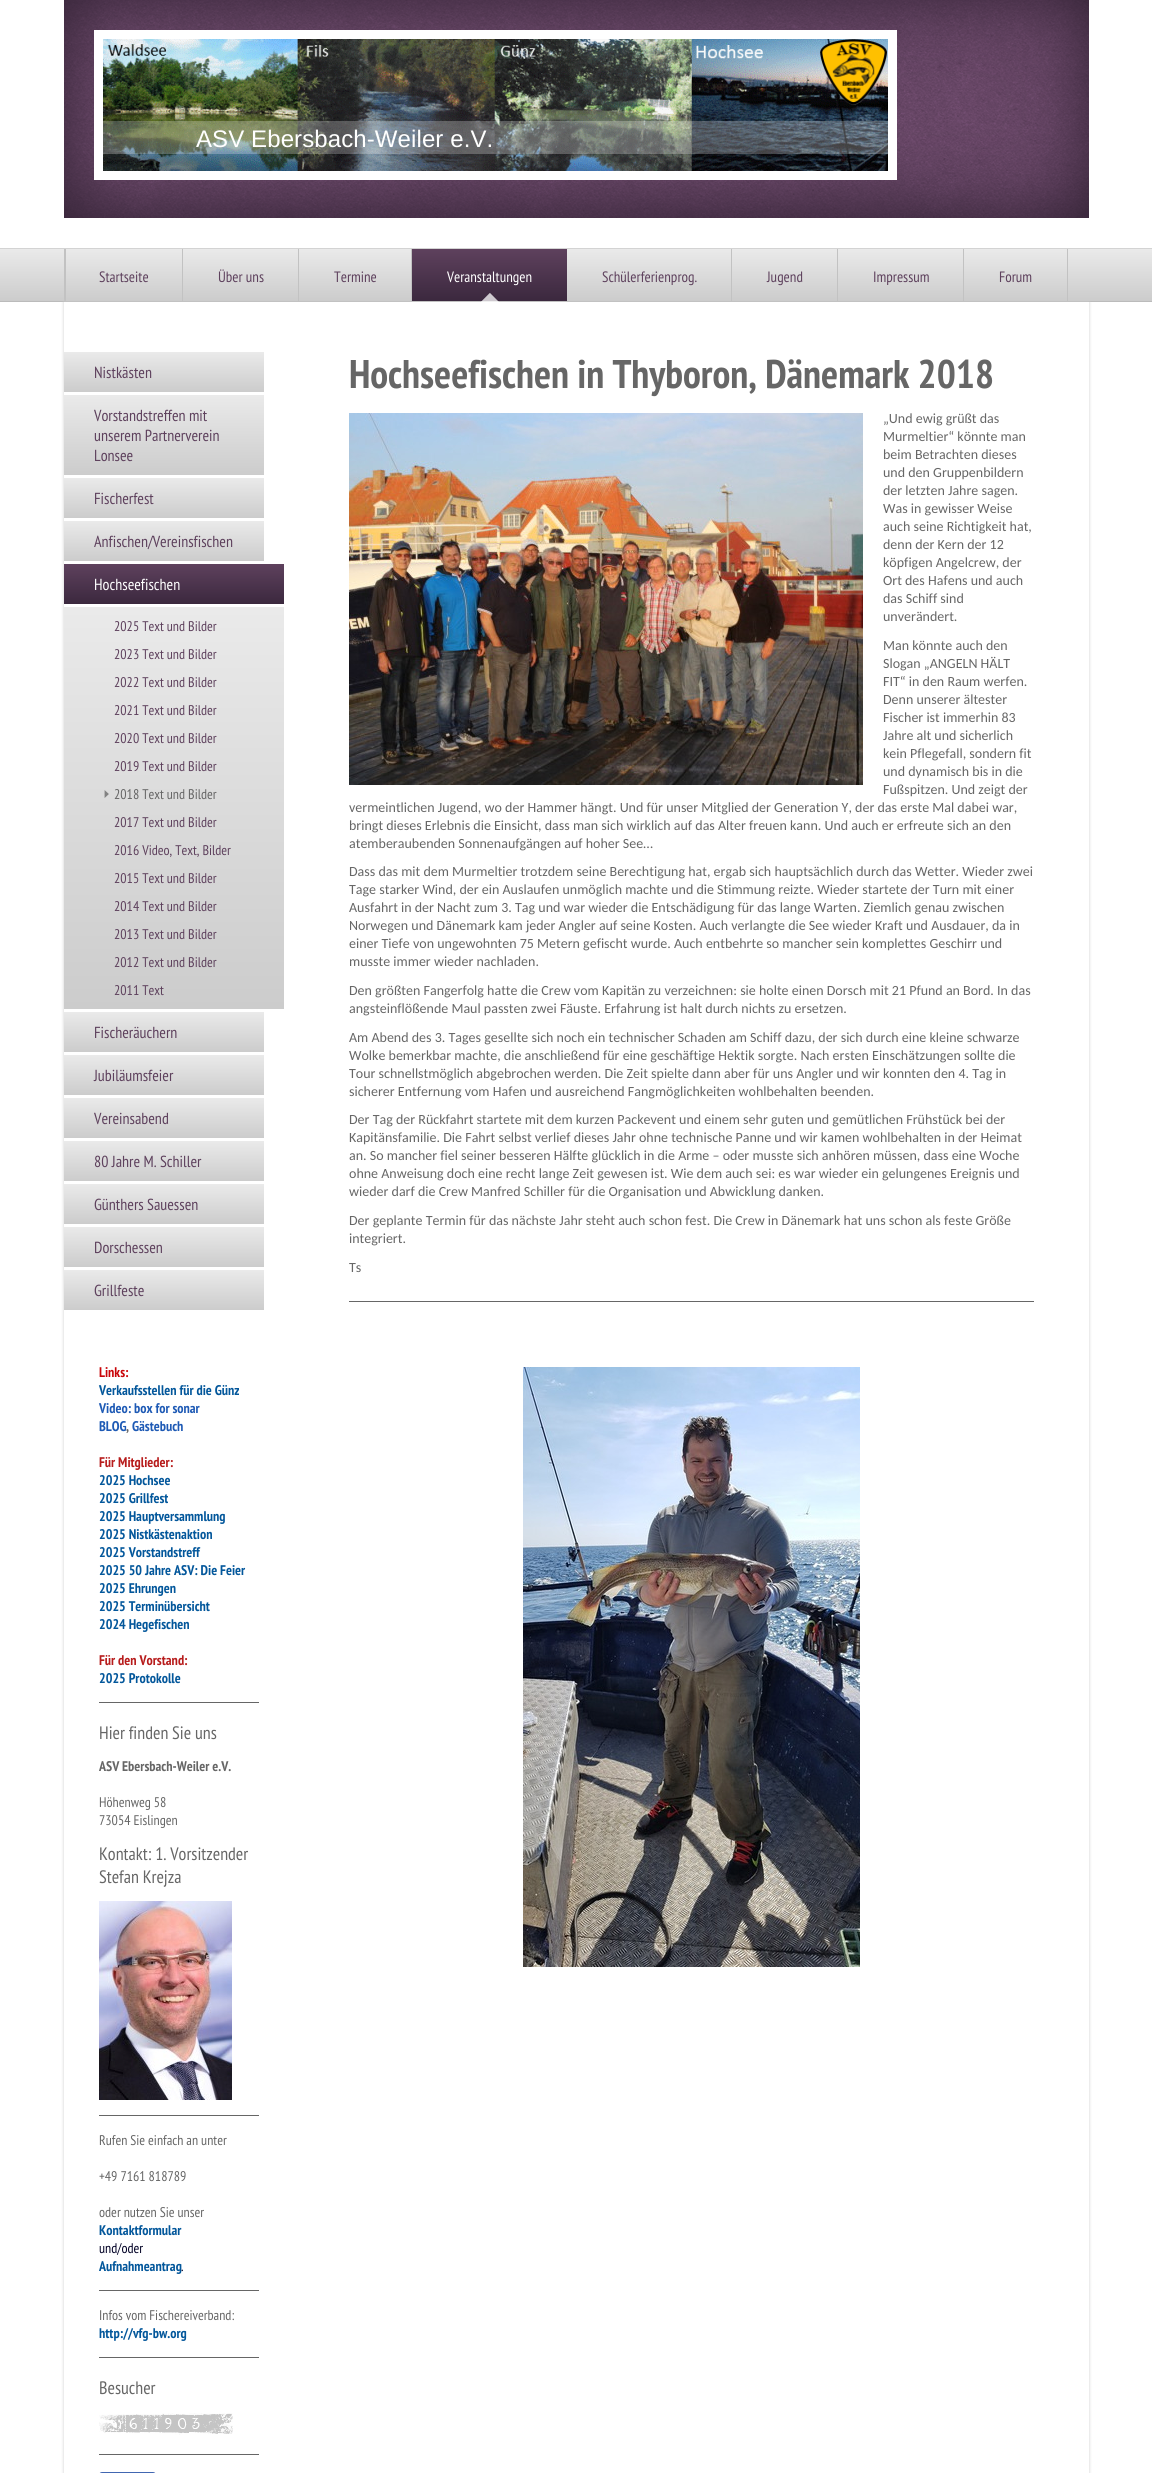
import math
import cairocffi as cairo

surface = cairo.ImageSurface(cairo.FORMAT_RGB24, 1152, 2473)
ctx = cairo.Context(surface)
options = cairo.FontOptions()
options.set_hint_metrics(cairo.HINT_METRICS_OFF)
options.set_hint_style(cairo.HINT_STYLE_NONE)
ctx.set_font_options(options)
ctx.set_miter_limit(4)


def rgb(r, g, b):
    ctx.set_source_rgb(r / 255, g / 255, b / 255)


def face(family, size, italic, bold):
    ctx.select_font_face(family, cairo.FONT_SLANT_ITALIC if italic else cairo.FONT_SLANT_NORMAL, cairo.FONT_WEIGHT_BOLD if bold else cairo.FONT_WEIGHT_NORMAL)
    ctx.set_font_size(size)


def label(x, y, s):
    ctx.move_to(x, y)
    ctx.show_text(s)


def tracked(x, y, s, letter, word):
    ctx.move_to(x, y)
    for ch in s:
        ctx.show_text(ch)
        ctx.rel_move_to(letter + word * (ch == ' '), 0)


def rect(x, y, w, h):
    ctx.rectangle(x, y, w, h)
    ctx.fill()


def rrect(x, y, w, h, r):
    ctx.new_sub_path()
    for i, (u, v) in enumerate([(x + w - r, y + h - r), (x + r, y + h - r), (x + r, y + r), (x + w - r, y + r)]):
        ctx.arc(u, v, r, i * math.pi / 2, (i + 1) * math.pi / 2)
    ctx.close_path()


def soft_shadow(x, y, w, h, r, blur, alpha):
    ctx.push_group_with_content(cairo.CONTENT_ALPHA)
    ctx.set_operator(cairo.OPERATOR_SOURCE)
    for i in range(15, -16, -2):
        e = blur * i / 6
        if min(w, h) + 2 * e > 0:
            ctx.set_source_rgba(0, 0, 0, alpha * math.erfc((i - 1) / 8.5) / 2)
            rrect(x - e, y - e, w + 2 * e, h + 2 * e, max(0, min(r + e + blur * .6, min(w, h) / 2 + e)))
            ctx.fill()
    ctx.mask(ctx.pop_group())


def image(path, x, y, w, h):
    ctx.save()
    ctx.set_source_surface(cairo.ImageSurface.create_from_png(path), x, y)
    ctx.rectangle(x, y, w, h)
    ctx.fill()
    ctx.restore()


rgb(255, 255, 255)
ctx.paint()
image('image0.png', 64, 0, 1025, 218)
rgb(255, 255, 255)
rect(94, 30, 803, 150)
image('image1.png', 103, 39, 785, 132)
image('image2.png', 820, 39, 67, 66)
ctx.set_source_rgba(1, 1, 1, 0.25)
rect(103, 121, 785, 33)
face('Liberation Sans', 24, 0, 0)
rgb(255, 255, 255)
tracked(196, 147, 'ASV Ebersbach-Weiler e.V.', 0.1, 0)
gradient = cairo.LinearGradient(576, 249, 576, 301)
gradient.add_color_stop_rgba(0, 0.918, 0.918, 0.918, 1)
gradient.add_color_stop_rgba(1, 0.8, 0.8, 0.8, 1)
ctx.set_source(gradient)
rect(0, 249, 1152, 52)
rgb(211, 211, 211)
rect(0, 248, 1152, 1)
rgb(194, 194, 194)
rect(64, 249, 2, 52)
rgb(187, 187, 187)
rect(0, 301, 1152, 1)
ctx.save()
ctx.set_fill_rule(cairo.FILL_RULE_EVEN_ODD)
ctx.new_path()
ctx.move_to(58, 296)
ctx.line_to(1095, 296)
ctx.line_to(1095, 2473)
ctx.line_to(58, 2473)
ctx.close_path()
ctx.move_to(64, 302)
ctx.line_to(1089, 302)
ctx.line_to(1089, 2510)
ctx.line_to(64, 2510)
ctx.close_path()
ctx.clip()
rgb(204, 204, 204)
soft_shadow(64, 302, 1025, 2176, 0, 1.5, 1)
ctx.restore()
rgb(194, 194, 194)
rect(182, 249, 1, 52)
face('PT Sans Narrow', 15, 0, 0)
rgb(94, 65, 93)
label(99, 282, 'Startseite')
rgb(194, 194, 194)
rect(298, 249, 1, 52)
rgb(94, 65, 93)
label(218, 282, 'Über uns')
rgb(194, 194, 194)
rect(411, 249, 1, 52)
rgb(94, 65, 93)
label(334, 282, 'Termine')
gradient = cairo.LinearGradient(490, 249, 490, 301)
gradient.add_color_stop_rgba(0, 0.369, 0.255, 0.365, 1)
gradient.add_color_stop_rgba(1, 0.231, 0.157, 0.243, 1)
ctx.set_source(gradient)
rect(412, 249, 155, 52)
rgb(255, 255, 255)
label(447, 282, 'Veranstaltungen')
image('image3.png', 481, 293, 18, 9)
rgb(194, 194, 194)
rect(731, 249, 1, 52)
rgb(94, 65, 93)
label(602, 282, 'Schülerferienprog.')
rgb(194, 194, 194)
rect(837, 249, 1, 52)
rgb(94, 65, 93)
label(767, 282, 'Jugend')
rgb(194, 194, 194)
rect(963, 249, 1, 52)
rgb(94, 65, 93)
label(873, 282, 'Impressum')
rgb(194, 194, 194)
rect(1067, 249, 1, 52)
rgb(94, 65, 93)
label(999, 282, 'Forum')
gradient = cairo.LinearGradient(164, 352, 164, 392)
gradient.add_color_stop_rgba(0, 0.918, 0.918, 0.918, 1)
gradient.add_color_stop_rgba(1, 0.8, 0.8, 0.8, 1)
ctx.set_source(gradient)
rect(64, 352, 200, 40)
face('PT Sans Narrow', 16, 0, 0)
rgb(94, 65, 93)
label(94, 378, 'Nistkästen')
gradient = cairo.LinearGradient(164, 395, 164, 475)
gradient.add_color_stop_rgba(0, 0.918, 0.918, 0.918, 1)
gradient.add_color_stop_rgba(1, 0.8, 0.8, 0.8, 1)
ctx.set_source(gradient)
rect(64, 395, 200, 80)
rgb(94, 65, 93)
label(94, 421, 'Vorstandstreffen mit')
label(94, 441, 'unserem Partnerverein')
label(94, 461, 'Lonsee')
gradient = cairo.LinearGradient(164, 478, 164, 518)
gradient.add_color_stop_rgba(0, 0.918, 0.918, 0.918, 1)
gradient.add_color_stop_rgba(1, 0.8, 0.8, 0.8, 1)
ctx.set_source(gradient)
rect(64, 478, 200, 40)
rgb(94, 65, 93)
label(94, 504, 'Fischerfest')
gradient = cairo.LinearGradient(164, 521, 164, 561)
gradient.add_color_stop_rgba(0, 0.918, 0.918, 0.918, 1)
gradient.add_color_stop_rgba(1, 0.8, 0.8, 0.8, 1)
ctx.set_source(gradient)
rect(64, 521, 200, 40)
rgb(94, 65, 93)
label(94, 547, 'Anfischen/Vereinsfischen')
gradient = cairo.LinearGradient(174, 564, 174, 604)
gradient.add_color_stop_rgba(0, 0.369, 0.255, 0.365, 1)
gradient.add_color_stop_rgba(1, 0.231, 0.157, 0.243, 1)
ctx.set_source(gradient)
rect(64, 564, 220, 40)
rgb(255, 255, 255)
label(94, 590, 'Hochseefischen')
gradient = cairo.LinearGradient(174, 607, 174, 1009)
gradient.add_color_stop_rgba(0, 0.918, 0.918, 0.918, 1)
gradient.add_color_stop_rgba(1, 0.8, 0.8, 0.8, 1)
ctx.set_source(gradient)
rect(64, 607, 220, 402)
face('PT Sans Narrow', 14, 0, 0)
rgb(94, 65, 93)
label(114, 631, '2025 Text und Bilder')
label(114, 659, '2023 Text und Bilder')
label(114, 687, '2022 Text und Bilder')
label(114, 715, '2021 Text und Bilder')
label(114, 743, '2020 Text und Bilder')
label(114, 771, '2019 Text und Bilder')
image('image4.png', 104, 790, 5, 8)
rgb(102, 102, 102)
label(114, 799, '2018 Text und Bilder')
rgb(94, 65, 93)
label(114, 827, '2017 Text und Bilder')
label(114, 855, '2016 Video, Text, Bilder')
label(114, 883, '2015 Text und Bilder')
label(114, 911, '2014 Text und Bilder')
label(114, 939, '2013 Text und Bilder')
label(114, 967, '2012 Text und Bilder')
label(114, 995, '2011 Text')
gradient = cairo.LinearGradient(164, 1012, 164, 1052)
gradient.add_color_stop_rgba(0, 0.918, 0.918, 0.918, 1)
gradient.add_color_stop_rgba(1, 0.8, 0.8, 0.8, 1)
ctx.set_source(gradient)
rect(64, 1012, 200, 40)
face('PT Sans Narrow', 16, 0, 0)
rgb(94, 65, 93)
label(94, 1038, 'Fischeräuchern')
gradient = cairo.LinearGradient(164, 1055, 164, 1095)
gradient.add_color_stop_rgba(0, 0.918, 0.918, 0.918, 1)
gradient.add_color_stop_rgba(1, 0.8, 0.8, 0.8, 1)
ctx.set_source(gradient)
rect(64, 1055, 200, 40)
rgb(94, 65, 93)
label(94, 1081, 'Jubiläumsfeier')
gradient = cairo.LinearGradient(164, 1098, 164, 1138)
gradient.add_color_stop_rgba(0, 0.918, 0.918, 0.918, 1)
gradient.add_color_stop_rgba(1, 0.8, 0.8, 0.8, 1)
ctx.set_source(gradient)
rect(64, 1098, 200, 40)
rgb(94, 65, 93)
label(94, 1124, 'Vereinsabend')
gradient = cairo.LinearGradient(164, 1141, 164, 1181)
gradient.add_color_stop_rgba(0, 0.918, 0.918, 0.918, 1)
gradient.add_color_stop_rgba(1, 0.8, 0.8, 0.8, 1)
ctx.set_source(gradient)
rect(64, 1141, 200, 40)
rgb(94, 65, 93)
label(94, 1167, '80 Jahre M. Schiller')
gradient = cairo.LinearGradient(164, 1184, 164, 1224)
gradient.add_color_stop_rgba(0, 0.918, 0.918, 0.918, 1)
gradient.add_color_stop_rgba(1, 0.8, 0.8, 0.8, 1)
ctx.set_source(gradient)
rect(64, 1184, 200, 40)
rgb(94, 65, 93)
label(94, 1210, 'Günthers Sauessen')
gradient = cairo.LinearGradient(164, 1227, 164, 1267)
gradient.add_color_stop_rgba(0, 0.918, 0.918, 0.918, 1)
gradient.add_color_stop_rgba(1, 0.8, 0.8, 0.8, 1)
ctx.set_source(gradient)
rect(64, 1227, 200, 40)
rgb(94, 65, 93)
label(94, 1253, 'Dorschessen')
gradient = cairo.LinearGradient(164, 1270, 164, 1310)
gradient.add_color_stop_rgba(0, 0.918, 0.918, 0.918, 1)
gradient.add_color_stop_rgba(1, 0.8, 0.8, 0.8, 1)
ctx.set_source(gradient)
rect(64, 1270, 200, 40)
rgb(94, 65, 93)
label(94, 1296, 'Grillfeste')
face('PT Sans Narrow', 14, 0, 1)
rgb(201, 5, 9)
label(99, 1377, 'Links:')
rgb(3, 87, 155)
label(99, 1395, 'Verkaufsstellen für die Günz')
rgb(30, 90, 181)
label(99, 1413, 'Video: box for sonar')
label(99, 1431, 'BLOG')
rgb(102, 102, 102)
label(126, 1431, ',')
rgb(30, 90, 181)
label(132, 1431, 'Gästebuch')
rgb(183, 28, 28)
label(99, 1467, 'Für Mitglieder:')
rgb(3, 87, 155)
label(99, 1485, '2025 Hochsee')
label(99, 1503, '2025 Grillfest')
label(99, 1521, '2025 Hauptversammlung')
label(99, 1539, '2025 Nistkästenaktion')
label(99, 1557, '2025 Vorstandstreff')
label(99, 1575, '2025 50 Jahre ASV: Die Feier')
label(99, 1593, '2025 Ehrungen')
label(99, 1611, '2025 Terminübersicht')
label(99, 1629, '2024 Hegefischen')
rgb(183, 28, 28)
label(99, 1665, 'Für den Vorstand:')
rgb(3, 87, 155)
label(99, 1683, '2025 Protokolle')
rgb(102, 102, 102)
rect(99, 1702, 160, 1)
face('PT Sans Narrow', 18, 0, 0)
label(99, 1739, 'Hier finden Sie uns')
face('PT Sans Narrow', 14, 0, 1)
label(99, 1771, 'ASV Ebersbach-Weiler e.V.')
face('PT Sans Narrow', 14, 0, 0)
label(99, 1807, 'Höhenweg 58')
label(99, 1825, '73054 Eislingen')
face('PT Sans Narrow', 18, 0, 0)
label(99, 1860, 'Kontakt: 1. Vorsitzender')
label(99, 1883, 'Stefan Krejza')
image('image5.png', 99, 1901, 133, 199)
rect(99, 2115, 160, 1)
face('PT Sans Narrow', 14, 0, 0)
label(99, 2145, 'Rufen Sie einfach an unter')
label(99, 2181, '+49 7161 818789')
label(99, 2217, 'oder nutzen Sie unser')
face('PT Sans Narrow', 14, 0, 1)
rgb(3, 87, 155)
label(99, 2235, 'Kontaktformular')
face('PT Sans Narrow', 14, 0, 0)
rgb(0, 0, 36)
label(99, 2253, 'und/oder')
face('PT Sans Narrow', 14, 0, 1)
rgb(3, 87, 155)
label(99, 2271, 'Aufnahmeantrag')
face('PT Sans Narrow', 14, 0, 0)
rgb(0, 0, 36)
label(181, 2271, '.')
rgb(102, 102, 102)
rect(99, 2290, 160, 1)
label(99, 2320, 'Infos vom Fischereiverband:')
face('PT Sans Narrow', 14, 0, 1)
rgb(3, 87, 155)
label(99, 2338, 'http://vfg-bw.org')
rgb(102, 102, 102)
rect(99, 2357, 160, 1)
face('PT Sans Narrow', 18, 0, 0)
label(99, 2394, 'Besucher')
image('image6.png', 99, 2414, 27, 19)
image('image7.png', 126, 2414, 14, 19)
image('image8.png', 140, 2414, 11, 19)
image('image8.png', 151, 2414, 11, 19)
image('image9.png', 162, 2413, 12, 20)
image('image10.png', 174, 2414, 15, 21)
image('image11.png', 189, 2413, 14, 20)
image('image12.png', 203, 2413, 30, 21)
rect(99, 2454, 160, 1)
rgb(66, 103, 178)
rrect(99, 2472, 57, 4, 3)
ctx.fill()
face('PT Sans Narrow', 40, 0, 1)
rgb(102, 102, 102)
label(349, 388, 'Hochseefischen in Thyboron, Dänemark 2018')
image('image13.png', 349, 413, 514, 372)
face('Carlito', 14, 0, 0)
label(883, 423, '„Und ewig grüßt das')
label(883, 441, 'Murmeltier“ könnte man')
label(883, 459, 'beim Betrachten dieses')
label(883, 477, 'und den Gruppenbildern')
label(883, 495, 'der letzten Jahre sagen.')
label(883, 513, 'Was in gewisser Weise')
label(883, 531, 'auch seine Richtigkeit hat,')
label(883, 549, 'denn der Kern der 12')
label(883, 567, 'köpfigen Angelcrew, der')
label(883, 585, 'Ort des Hafens und auch')
label(883, 603, 'das Schiff sind')
label(883, 621, 'unverändert.')
label(883, 650, 'Man könnte auch den')
label(883, 668, 'Slogan „ANGELN HÄLT')
label(883, 686, 'FIT“ in den Raum werfen.')
label(883, 704, 'Denn unserer ältester')
label(883, 722, 'Fischer ist immerhin 83')
label(883, 740, 'Jahre alt und sicherlich')
label(883, 758, 'kein Pflegefall, sondern fit')
label(883, 776, 'und dynamisch bis in die')
label(883, 794, 'Fußspitzen. Und zeigt der')
label(349, 812, 'vermeintlichen Jugend, wo der Hammer hängt. Und für unser Mitglied der Generation Y, der das erste Mal dabei war,')
label(349, 830, 'bringt dieses Erlebnis die Einsicht, dass man sich wirklich auf das Alter freuen kann. Und auch er erfreute sich an den')
label(349, 848, 'atemberaubenden Sonnenaufgängen auf hoher See…')
label(349, 876, 'Dass das mit dem Murmeltier trotzdem seine Berechtigung hat, ergab sich hauptsächlich durch das Wetter. Wieder zwei')
label(349, 894, 'Tage starker Wind, der ein Auslaufen unmöglich machte und die Stimmung reizte. Wieder startete der Turn mit einer')
label(349, 912, 'Ausfahrt in der Nacht zum 3. Tag und war wieder die Entschädigung für das lange Warten. Ziemlich genau zwischen')
label(349, 930, 'Norwegen und Dänemark kam jeder Angler auf seine Kosten. Auch verlangte die See wieder Kraft und Ausdauer, da in')
label(349, 948, 'einer Tiefe von ungewohnten 75 Metern gefischt wurde. Auch entbehrte so mancher sein komplettes Geschirr und')
label(349, 966, 'musste immer wieder nachladen.')
label(349, 995, 'Den größten Fangerfolg hatte die Crew vom Kapitän zu verzeichnen: sie holte einen Dorsch mit 21 Pfund an Bord. In das')
label(349, 1013, 'angsteinflößende Maul passten zwei Fäuste. Erfahrung ist halt durch nichts zu ersetzen.')
label(349, 1042, 'Am Abend des 3. Tages gesellte sich noch ein technischer Schaden am Schiff dazu, der sich durch eine kleine schwarze')
label(349, 1060, 'Wolke bemerkbar machte, die anschließend für eine geschäftige Hektik sorgte. Nach ersten Einschätzungen sollte die')
label(349, 1078, 'Tour schnellstmöglich abgebrochen werden. Die Zeit spielte dann aber für uns Angler und wir konnten den 4. Tag in')
label(349, 1096, 'sicherer Entfernung vom Hafen und ausreichend Fangmöglichkeiten wohlbehalten beenden.')
label(349, 1124, 'Der Tag der Rückfahrt startete mit dem kurzen Packevent und einem sehr guten und gemütlichen Frühstück bei der')
label(349, 1142, 'Kapitänsfamilie. Die Fahrt selbst verlief dieses Jahr ohne technische Panne und wir kamen wohlbehalten in der Heimat')
label(349, 1160, 'an. So mancher fiel seiner besseren Hälfte glücklich in die Arme – oder musste sich anhören müssen, dass eine Woche')
label(349, 1178, 'ohne Anweisung doch eine recht lange Zeit gewesen ist. Wie dem auch sei: es war wieder ein gelungenes Ereignis und')
label(349, 1196, 'wieder darf die Crew Manfred Schiller für die Organisation und Abwicklung danken.')
label(349, 1225, 'Der geplante Termin für das nächste Jahr steht auch schon fest. Die Crew in Dänemark hat uns schon als feste Größe')
label(349, 1243, 'integriert.')
label(349, 1272, 'Ts')
rect(349, 1301, 685, 1)
image('image14.png', 523, 1367, 337, 600)
surface.write_to_png('render.png')
